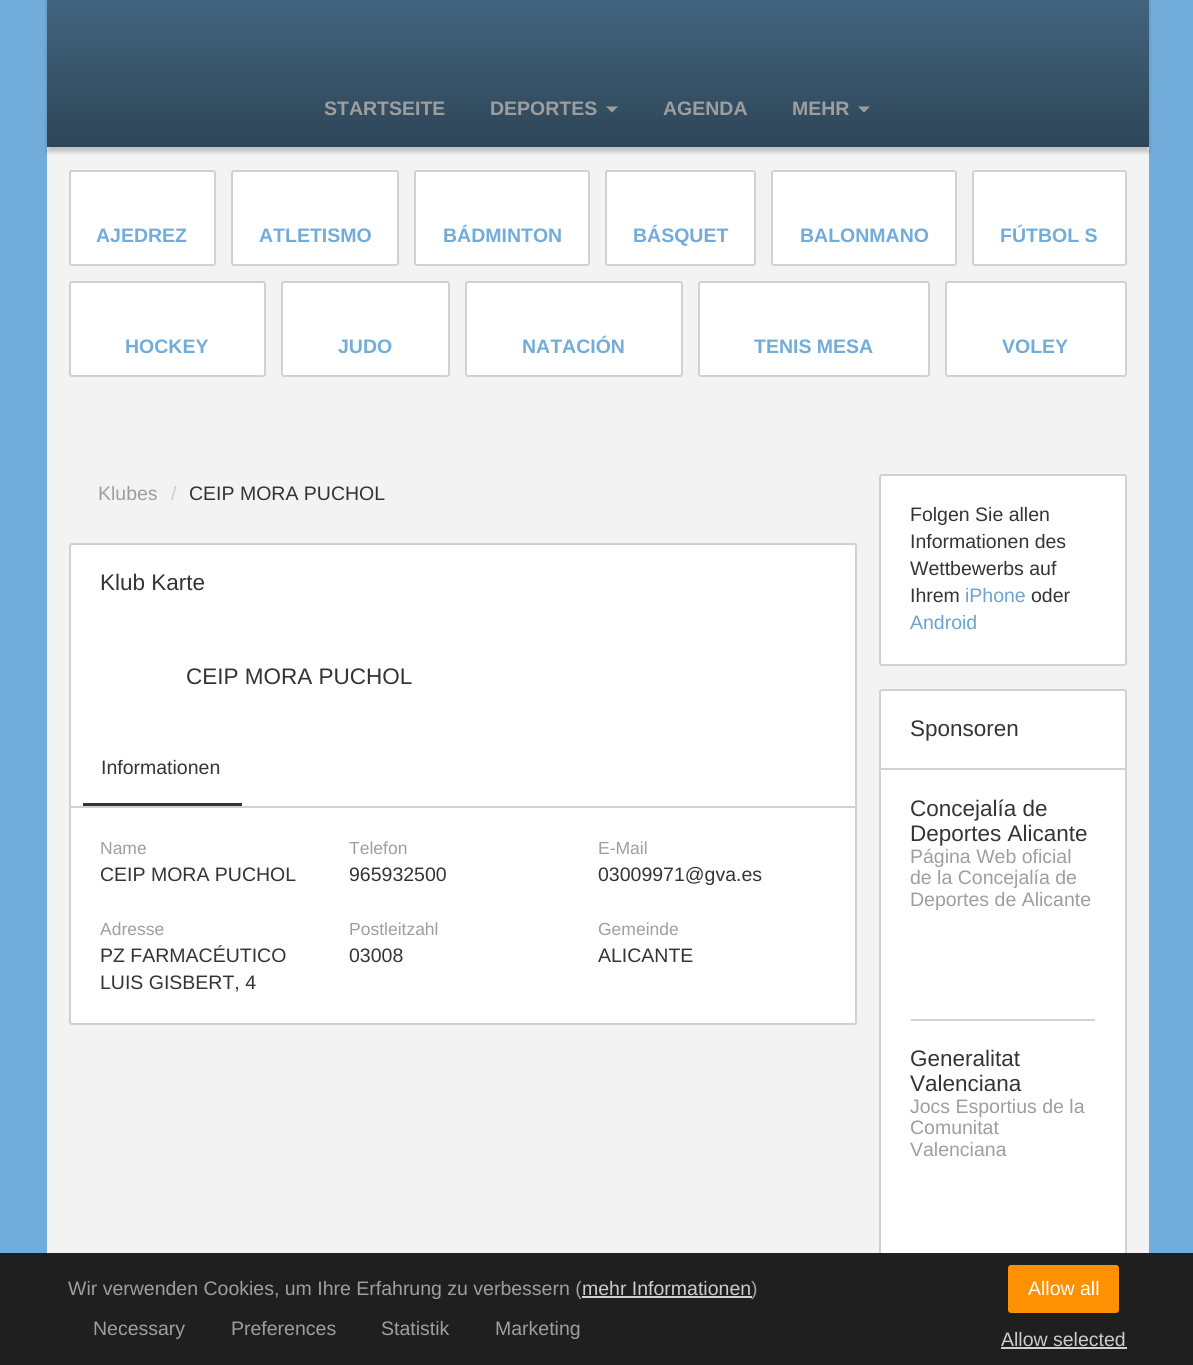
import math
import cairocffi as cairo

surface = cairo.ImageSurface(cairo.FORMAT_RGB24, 1193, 1365)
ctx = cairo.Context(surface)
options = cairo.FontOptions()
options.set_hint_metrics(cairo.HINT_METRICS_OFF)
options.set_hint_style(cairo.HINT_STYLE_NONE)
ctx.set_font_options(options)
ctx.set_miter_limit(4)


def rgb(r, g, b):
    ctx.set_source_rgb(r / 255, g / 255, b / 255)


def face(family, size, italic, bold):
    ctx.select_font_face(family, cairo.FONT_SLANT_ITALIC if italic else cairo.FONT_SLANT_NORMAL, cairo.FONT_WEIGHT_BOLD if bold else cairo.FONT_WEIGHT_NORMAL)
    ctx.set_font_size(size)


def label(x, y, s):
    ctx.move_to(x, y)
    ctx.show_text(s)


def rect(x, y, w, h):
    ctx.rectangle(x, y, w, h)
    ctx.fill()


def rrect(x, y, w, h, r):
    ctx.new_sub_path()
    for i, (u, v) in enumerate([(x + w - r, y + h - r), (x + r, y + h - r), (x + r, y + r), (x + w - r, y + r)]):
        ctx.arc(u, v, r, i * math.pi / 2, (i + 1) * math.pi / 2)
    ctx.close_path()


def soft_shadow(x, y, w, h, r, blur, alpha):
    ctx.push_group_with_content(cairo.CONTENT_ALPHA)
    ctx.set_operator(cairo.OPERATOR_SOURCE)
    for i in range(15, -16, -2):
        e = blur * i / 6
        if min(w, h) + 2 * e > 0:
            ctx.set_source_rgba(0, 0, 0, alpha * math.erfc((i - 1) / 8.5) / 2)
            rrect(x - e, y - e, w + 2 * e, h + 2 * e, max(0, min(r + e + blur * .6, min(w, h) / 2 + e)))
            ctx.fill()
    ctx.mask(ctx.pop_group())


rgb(114, 172, 218)
ctx.paint()
rgb(243, 243, 243)
rect(47, 147, 1102, 1106)
rgb(0, 0, 0)
soft_shadow(47, -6, 1102, 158, 0, 2, 0.2)
gradient = cairo.LinearGradient(598, -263, 598, 147)
gradient.add_color_stop_rgba(0, 0.404, 0.608, 0.769, 1)
gradient.add_color_stop_rgba(0.7, 0.247, 0.373, 0.471, 1)
gradient.add_color_stop_rgba(1, 0.18, 0.271, 0.341, 1)
ctx.set_source(gradient)
rect(47, 0, 1102, 147)
face('Liberation Sans', 19.5, 0, 1)
rgb(158, 158, 158)
label(324, 115, 'STARTSEITE')
label(490, 115, 'DEPORTES')
ctx.new_path()
ctx.move_to(606, 106.5)
ctx.line_to(618, 106.5)
ctx.line_to(612, 112.5)
ctx.close_path()
ctx.fill()
label(663, 115, 'AGENDA')
label(792, 115, 'MEHR')
ctx.new_path()
ctx.move_to(858, 106.5)
ctx.line_to(870, 106.5)
ctx.line_to(864, 112.5)
ctx.close_path()
ctx.fill()
rgb(255, 255, 255)
rrect(70, 171, 145, 94, 2)
ctx.fill_preserve()
rgb(209, 209, 209)
ctx.stroke()
rgb(114, 172, 218)
label(96, 242, 'AJEDREZ')
rgb(255, 255, 255)
rrect(232, 171, 166, 94, 2)
ctx.fill_preserve()
rgb(209, 209, 209)
ctx.stroke()
rgb(114, 172, 218)
label(259, 242, 'ATLETISMO')
rgb(255, 255, 255)
rrect(415, 171, 174, 94, 2)
ctx.fill_preserve()
rgb(209, 209, 209)
ctx.stroke()
rgb(114, 172, 218)
label(443, 242, 'BÁDMINTON')
rgb(255, 255, 255)
rrect(606, 171, 149, 94, 2)
ctx.fill_preserve()
rgb(209, 209, 209)
ctx.stroke()
rgb(114, 172, 218)
label(633, 242, 'BÁSQUET')
rgb(255, 255, 255)
rrect(772, 171, 184, 94, 2)
ctx.fill_preserve()
rgb(209, 209, 209)
ctx.stroke()
rgb(114, 172, 218)
label(800, 242, 'BALONMANO')
rgb(255, 255, 255)
rrect(973, 171, 153, 94, 2)
ctx.fill_preserve()
rgb(209, 209, 209)
ctx.stroke()
rgb(114, 172, 218)
label(1000, 242, 'FÚTBOL S')
rgb(255, 255, 255)
rrect(70, 282, 195, 94, 2)
ctx.fill_preserve()
rgb(209, 209, 209)
ctx.stroke()
rgb(114, 172, 218)
label(125, 353, 'HOCKEY')
rgb(255, 255, 255)
rrect(282, 282, 167, 94, 2)
ctx.fill_preserve()
rgb(209, 209, 209)
ctx.stroke()
rgb(114, 172, 218)
label(338, 353, 'JUDO')
rgb(255, 255, 255)
rrect(466, 282, 216, 94, 2)
ctx.fill_preserve()
rgb(209, 209, 209)
ctx.stroke()
rgb(114, 172, 218)
label(522, 353, 'NATACIÓN')
rgb(255, 255, 255)
rrect(699, 282, 230, 94, 2)
ctx.fill_preserve()
rgb(209, 209, 209)
ctx.stroke()
rgb(114, 172, 218)
label(754, 353, 'TENIS MESA')
rgb(255, 255, 255)
rrect(946, 282, 180, 94, 2)
ctx.fill_preserve()
rgb(209, 209, 209)
ctx.stroke()
rgb(114, 172, 218)
label(1002, 353, 'VOLEY')
face('Liberation Sans', 19.5, 0, 0)
rgb(158, 158, 158)
label(98, 500, 'Klubes')
rgb(204, 204, 204)
label(171, 500, '/')
rgb(52, 52, 52)
label(189, 500, 'CEIP MORA PUCHOL')
rgb(255, 255, 255)
rrect(70, 544, 786, 480, 2)
ctx.fill_preserve()
rgb(209, 209, 209)
ctx.stroke()
face('Liberation Sans', 22.5, 0, 0)
rgb(52, 52, 52)
label(100, 590, 'Klub Karte')
label(186, 684, 'CEIP MORA PUCHOL')
face('Liberation Sans', 19.5, 0, 0)
label(101, 774, 'Informationen')
rect(83, 803, 159, 3)
rgb(209, 209, 209)
rect(71, 806, 784, 2)
face('Liberation Sans', 17.5, 0, 0)
rgb(158, 158, 158)
label(100, 854, 'Name')
face('Liberation Sans', 19.5, 0, 0)
rgb(52, 52, 52)
label(100, 881, 'CEIP MORA PUCHOL')
face('Liberation Sans', 17.5, 0, 0)
rgb(158, 158, 158)
label(349, 854, 'Telefon')
face('Liberation Sans', 19.5, 0, 0)
rgb(52, 52, 52)
label(349, 881, '965932500')
face('Liberation Sans', 17.5, 0, 0)
rgb(158, 158, 158)
label(598, 854, 'E-Mail')
face('Liberation Sans', 19.5, 0, 0)
rgb(52, 52, 52)
label(598, 881, '03009971@gva.es')
face('Liberation Sans', 17.5, 0, 0)
rgb(158, 158, 158)
label(100, 935, 'Adresse')
face('Liberation Sans', 19.5, 0, 0)
rgb(52, 52, 52)
label(100, 962, 'PZ FARMACÉUTICO')
label(100, 989, 'LUIS GISBERT, 4')
face('Liberation Sans', 17.5, 0, 0)
rgb(158, 158, 158)
label(349, 935, 'Postleitzahl')
face('Liberation Sans', 19.5, 0, 0)
rgb(52, 52, 52)
label(349, 962, '03008')
face('Liberation Sans', 17.5, 0, 0)
rgb(158, 158, 158)
label(598, 935, 'Gemeinde')
face('Liberation Sans', 19.5, 0, 0)
rgb(52, 52, 52)
label(598, 962, 'ALICANTE')
rgb(255, 255, 255)
rrect(880, 475, 246, 190, 2)
ctx.fill_preserve()
rgb(209, 209, 209)
ctx.stroke()
rgb(52, 52, 52)
label(910, 521, 'Folgen Sie allen')
label(910, 548, 'Informationen des')
label(910, 575, 'Wettbewerbs auf')
label(910, 602, 'Ihrem')
rgb(108, 163, 207)
label(965, 602, 'iPhone')
rgb(52, 52, 52)
label(1031, 602, 'oder')
rgb(108, 163, 207)
label(910, 629, 'Android')
rgb(255, 255, 255)
rrect(880, 690, 246, 580, 2)
ctx.fill_preserve()
rgb(209, 209, 209)
ctx.stroke()
rect(881, 768, 244, 2)
face('Liberation Sans', 22.5, 0, 0)
rgb(52, 52, 52)
label(910, 736, 'Sponsoren')
rgb(209, 209, 209)
rect(911, 1019, 184, 2)
rgb(52, 52, 52)
label(910, 816, 'Concejalía de')
label(910, 841, 'Deportes Alicante')
face('Liberation Sans', 19.5, 0, 0)
rgb(158, 158, 158)
label(910, 863, 'Página Web oficial')
label(910, 884, 'de la Concejalía de')
label(910, 906, 'Deportes de Alicante')
face('Liberation Sans', 22.5, 0, 0)
rgb(52, 52, 52)
label(910, 1066, 'Generalitat')
label(910, 1091, 'Valenciana')
face('Liberation Sans', 19.5, 0, 0)
rgb(158, 158, 158)
label(910, 1113, 'Jocs Esportius de la')
label(910, 1134, 'Comunitat')
label(910, 1156, 'Valenciana')
rgb(31, 31, 31)
rect(0, 1253, 1193, 112)
rgb(158, 158, 158)
label(68, 1295, 'Wir verwenden Cookies, um Ihre Erfahrung zu verbessern (')
rgb(204, 204, 204)
label(582, 1295, 'mehr Informationen')
rgb(209, 209, 209)
rect(582, 1296, 170, 2)
rgb(158, 158, 158)
label(751, 1295, ')')
label(93, 1335, 'Necessary')
label(231, 1335, 'Preferences')
label(381, 1335, 'Statistik')
label(495, 1335, 'Marketing')
rgb(254, 144, 3)
rrect(1009, 1266, 109, 46, 2)
ctx.fill_preserve()
ctx.stroke()
rgb(255, 255, 255)
label(1028, 1295, 'Allow all')
rgb(204, 204, 204)
label(1001, 1346, 'Allow selected')
rgb(209, 209, 209)
rect(1001, 1347, 126, 2)
surface.write_to_png('render.png')
